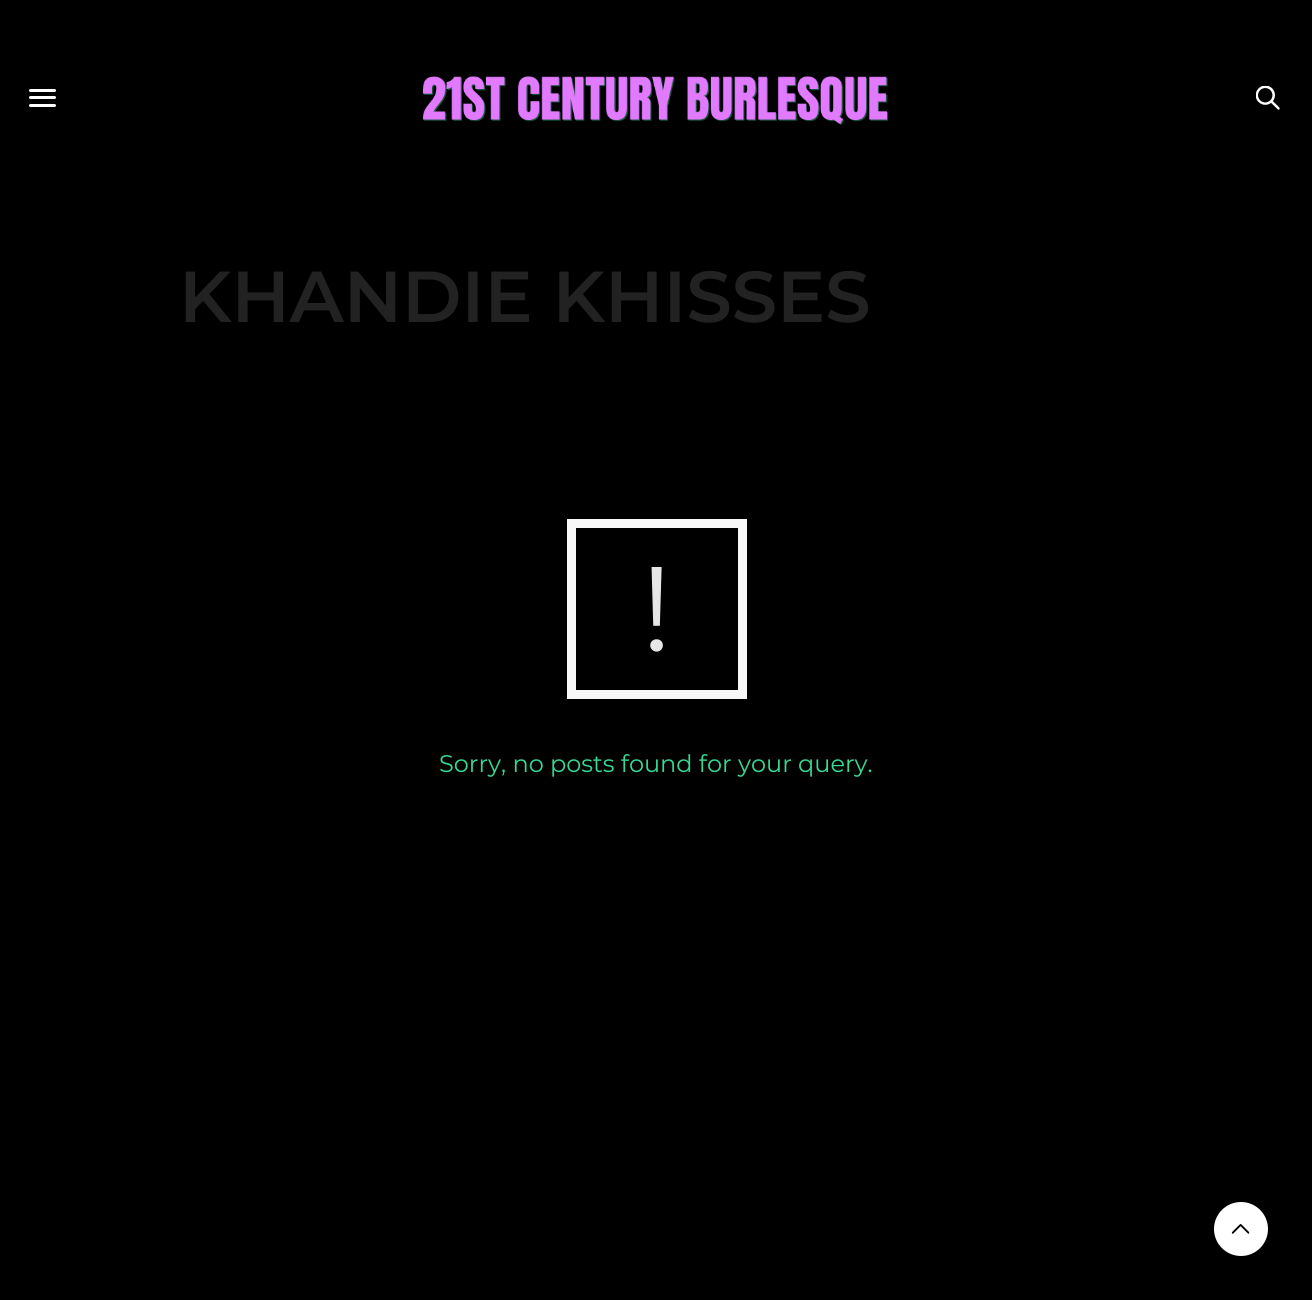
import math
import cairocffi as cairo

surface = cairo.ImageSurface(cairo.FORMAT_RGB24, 1312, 1300)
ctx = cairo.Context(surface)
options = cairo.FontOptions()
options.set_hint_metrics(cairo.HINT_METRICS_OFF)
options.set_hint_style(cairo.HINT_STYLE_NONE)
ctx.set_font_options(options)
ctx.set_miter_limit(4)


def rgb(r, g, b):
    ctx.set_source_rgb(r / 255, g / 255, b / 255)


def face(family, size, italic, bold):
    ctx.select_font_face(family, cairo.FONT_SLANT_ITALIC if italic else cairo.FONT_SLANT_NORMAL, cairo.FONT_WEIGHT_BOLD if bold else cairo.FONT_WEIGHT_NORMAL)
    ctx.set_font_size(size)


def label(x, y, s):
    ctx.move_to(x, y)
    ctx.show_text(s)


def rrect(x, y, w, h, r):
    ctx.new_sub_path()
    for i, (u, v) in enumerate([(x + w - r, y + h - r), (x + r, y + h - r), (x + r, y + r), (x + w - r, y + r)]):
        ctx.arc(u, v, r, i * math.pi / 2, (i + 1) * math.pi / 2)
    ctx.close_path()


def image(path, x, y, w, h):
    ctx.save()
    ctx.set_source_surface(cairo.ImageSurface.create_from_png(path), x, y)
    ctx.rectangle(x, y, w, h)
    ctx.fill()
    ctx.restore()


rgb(0, 0, 0)
ctx.paint()
rgb(255, 255, 255)
rrect(29, 89, 27, 3, 1.5)
ctx.fill()
rrect(29, 96, 27, 3, 1.5)
ctx.fill()
rrect(29, 104, 27, 3, 1.5)
ctx.fill()
image('image0.png', 423, 76, 466, 49)
image('image1.png', 1256, 86, 24, 24)
face('Montserrat SemiBold', 72, 0, 0)
rgb(34, 34, 34)
label(179, 322, 'KHANDIE KHISSES')
ctx.rectangle(571.5, 523.5, 171, 171)
rgb(248, 248, 248)
ctx.set_line_width(9)
ctx.stroke()
face('Montserrat', 120, 0, 0)
rgb(230, 230, 230)
label(641, 651, '!')
face('Montserrat', 24, 0, 0)
rgb(53, 219, 148)
label(439, 772, 'Sorry, no posts found for your query.')
rgb(255, 255, 255)
ctx.new_path()
ctx.arc(1241, 1229, 27, 0, 2 * math.pi)
ctx.fill()
image('image2.png', 1231, 1224, 19, 10)
surface.write_to_png('render.png')
